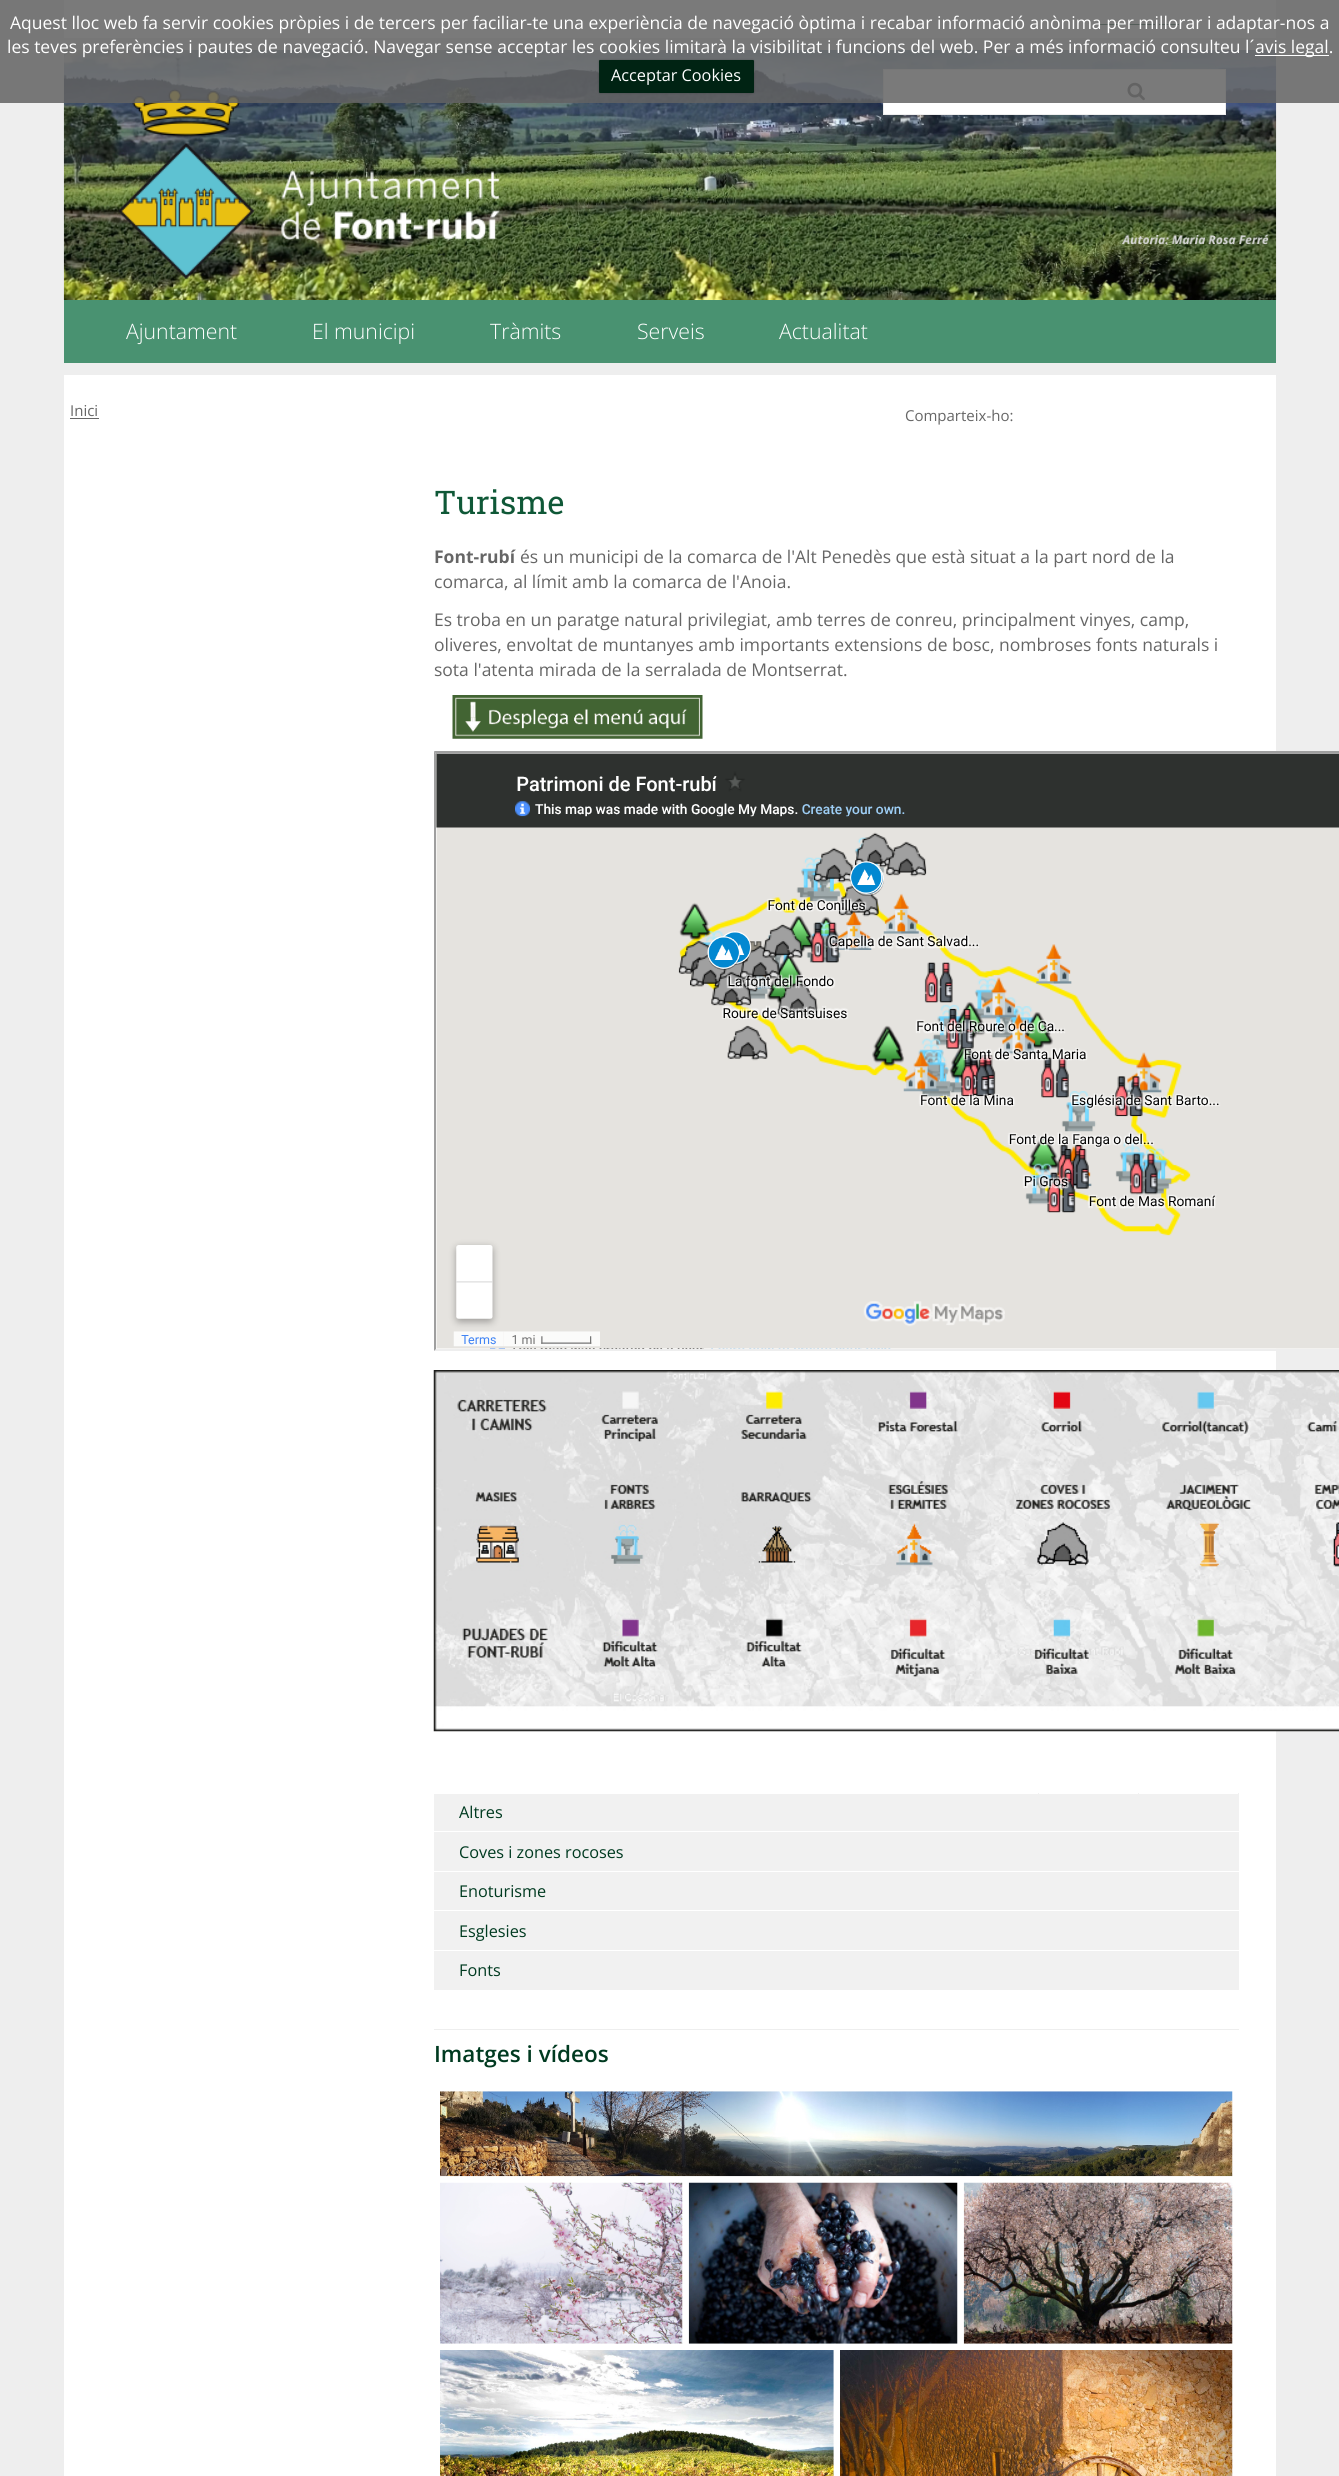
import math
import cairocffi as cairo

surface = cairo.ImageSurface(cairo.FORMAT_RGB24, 1339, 2476)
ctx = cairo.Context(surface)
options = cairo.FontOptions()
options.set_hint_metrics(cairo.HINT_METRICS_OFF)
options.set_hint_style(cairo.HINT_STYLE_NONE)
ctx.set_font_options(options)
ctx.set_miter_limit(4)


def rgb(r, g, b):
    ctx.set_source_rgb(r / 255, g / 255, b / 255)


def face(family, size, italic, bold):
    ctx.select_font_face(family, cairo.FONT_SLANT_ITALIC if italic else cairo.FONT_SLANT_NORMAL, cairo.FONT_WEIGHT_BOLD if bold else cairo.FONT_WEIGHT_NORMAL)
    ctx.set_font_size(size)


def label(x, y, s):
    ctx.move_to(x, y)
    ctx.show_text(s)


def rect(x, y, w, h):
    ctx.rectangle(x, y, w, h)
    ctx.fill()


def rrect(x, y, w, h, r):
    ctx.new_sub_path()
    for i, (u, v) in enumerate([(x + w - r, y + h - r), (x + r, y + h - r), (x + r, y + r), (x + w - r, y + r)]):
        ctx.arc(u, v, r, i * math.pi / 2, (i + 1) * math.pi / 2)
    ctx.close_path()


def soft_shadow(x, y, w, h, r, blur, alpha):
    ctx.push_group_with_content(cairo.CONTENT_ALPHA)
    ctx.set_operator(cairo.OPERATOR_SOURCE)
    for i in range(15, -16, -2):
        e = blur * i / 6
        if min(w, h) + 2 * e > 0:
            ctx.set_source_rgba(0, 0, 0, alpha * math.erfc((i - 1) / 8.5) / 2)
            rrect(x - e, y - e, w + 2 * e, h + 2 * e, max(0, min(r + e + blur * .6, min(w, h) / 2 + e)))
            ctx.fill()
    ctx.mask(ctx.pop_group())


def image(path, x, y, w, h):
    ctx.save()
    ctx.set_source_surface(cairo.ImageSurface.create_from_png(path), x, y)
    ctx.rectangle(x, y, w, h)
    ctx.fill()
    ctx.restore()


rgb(238, 238, 238)
ctx.paint()
rgb(255, 255, 255)
rect(64, 0, 1212, 38)
rgb(0, 58, 32)
rect(1100, 24, 25, 1)
rect(1129, 24, 26, 1)
rect(1159, 24, 20, 1)
image('image0.png', 63, 50, 1214, 250)
image('image1.png', 118, 88, 382, 191)
rgb(255, 255, 255)
ctx.rectangle(883.5, 69.5, 342, 45)
ctx.fill_preserve()
rgb(238, 238, 238)
ctx.set_line_width(1)
ctx.stroke()
image('image2.png', 1127, 82, 18, 19)
ctx.set_source_rgba(0.388, 0.388, 0.388, 0.85)
rect(0, 0, 1339, 103)
face('Open Sans', 17.5, 0, 0)
rgb(255, 255, 255)
label(10, 29, 'Aquest lloc web fa servir cookies pròpies i de tercers per faciliar-te una experiència de navegació òptima i recabar informació anònima per millorar i adaptar-nos a')
label(7, 53, 'les teves preferències i pautes de navegació. Navegar sense acceptar les cookies limitarà la visibilitat i funcions del web. Per a més informació consulteu l´')
rect(1255, 55, 74, 1)
label(1255, 53, 'avis legal.')
rgb(0, 0, 0)
soft_shadow(599, 60, 155, 33, 1, 1, 0.25)
rgb(0, 35, 19)
rrect(599, 60, 155, 33, 1)
ctx.fill()
face('Open Sans', 16.25, 0, 0)
rgb(255, 255, 255)
label(611, 81, 'Acceptar Cookies')
rgb(73, 146, 113)
rect(64, 300, 1212, 63)
face('Open Sans Light', 21.25, 0, 0)
rgb(255, 255, 255)
label(126, 339, 'Ajuntament')
label(312, 339, 'El municipi')
label(490, 339, 'Tràmits')
label(637, 339, 'Serveis')
label(779, 339, 'Actualitat')
rect(64, 375, 1212, 2101)
face('Open Sans', 15, 0, 0)
rgb(102, 102, 102)
label(70, 416, 'Inici')
rect(70, 418, 29, 1)
label(905, 421, 'Comparteix-ho:')
face('Roboto Slab', 32.5, 0, 0)
rgb(15, 88, 55)
label(434, 514, 'Turisme')
face('Open Sans', 17.5, 0, 1)
rgb(102, 102, 102)
label(434, 563, 'Font-rubí')
face('Open Sans', 17.5, 0, 0)
label(520, 563, 'és un municipi de la comarca de l\'Alt Penedès que està situat a la part nord de la')
label(434, 588, 'comarca, al límit amb la comarca de l\'Anoia.')
label(434, 626, 'Es troba en un paratge natural privilegiat, amb terres de conreu, principalment vinyes, camp,')
label(434, 651, 'oliveres, envoltat de muntanyes amb importants extensions de bosc, nombroses fonts naturals i')
label(434, 676, 'sota l\'atenta mirada de la serralada de Montserrat.')
image('image3.png', 452, 695, 251, 44)
rgb(159, 159, 159)
ctx.new_path()
ctx.move_to(434, 751)
ctx.line_to(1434, 751)
ctx.line_to(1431, 754)
ctx.line_to(436, 754)
ctx.close_path()
ctx.fill()
rgb(238, 238, 238)
ctx.new_path()
ctx.move_to(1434, 1351)
ctx.line_to(434, 1351)
ctx.line_to(436, 1349)
ctx.line_to(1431, 1349)
ctx.close_path()
ctx.fill()
rgb(159, 159, 159)
ctx.new_path()
ctx.move_to(434, 1351)
ctx.line_to(434, 751)
ctx.line_to(436, 754)
ctx.line_to(436, 1349)
ctx.close_path()
ctx.fill()
image('image4.png', 436, 753, 903, 596)
image('image5.png', 433, 1370, 906, 362)
rgb(241, 241, 241)
rect(434, 1794, 604, 77)
rect(1039, 1794, 99, 77)
rect(1139, 1794, 99, 39)
rect(1238, 1793, 1, 40)
rect(1138, 1950, 1, 41)
rect(1238, 1950, 1, 41)
rgb(255, 255, 255)
rect(1138, 1950, 101, 1)
rgb(241, 241, 241)
rect(1138, 1910, 1, 41)
rgb(255, 255, 255)
rect(1138, 1910, 1, 1)
rgb(241, 241, 241)
rect(1138, 1871, 1, 40)
rgb(255, 255, 255)
rect(1138, 1871, 1, 1)
rgb(241, 241, 241)
rect(1138, 1831, 1, 42)
rgb(255, 255, 255)
rect(1138, 1831, 101, 1)
rgb(241, 241, 241)
rect(1138, 1793, 1, 40)
rect(1038, 1950, 1, 41)
rgb(255, 255, 255)
rect(1038, 1950, 101, 1)
rgb(241, 241, 241)
rect(1038, 1910, 1, 41)
rgb(255, 255, 255)
rect(1038, 1910, 101, 1)
rgb(241, 241, 241)
rect(1038, 1871, 1, 40)
rgb(255, 255, 255)
rect(1038, 1871, 101, 1)
rgb(241, 241, 241)
rect(1038, 1831, 1, 42)
rgb(255, 255, 255)
rect(1038, 1831, 101, 1)
rgb(241, 241, 241)
rect(1038, 1793, 1, 40)
rgb(255, 255, 255)
rect(434, 1831, 605, 1)
face('Open Sans', 16.25, 0, 0)
rgb(0, 58, 32)
label(459, 1818, 'Altres')
rgb(255, 255, 255)
rect(1038, 1871, 1, 1)
rgb(0, 58, 32)
label(459, 1858, 'Coves i zones rocoses')
rgb(241, 241, 241)
rect(1139, 1833, 100, 38)
rect(434, 1872, 604, 38)
rgb(255, 255, 255)
rect(1038, 1910, 1, 1)
rgb(0, 58, 32)
label(459, 1897, 'Enoturisme')
rgb(241, 241, 241)
rect(1039, 1872, 99, 38)
rect(1139, 1872, 100, 38)
rect(434, 1911, 604, 39)
rgb(255, 255, 255)
rect(1038, 1950, 1, 1)
rgb(0, 58, 32)
label(459, 1937, 'Esglesies')
rgb(241, 241, 241)
rect(1039, 1911, 99, 39)
rect(1139, 1911, 100, 39)
rect(434, 1951, 604, 39)
rgb(255, 255, 255)
rect(1038, 1990, 1, 1)
rgb(0, 58, 32)
label(459, 1976, 'Fonts')
rgb(241, 241, 241)
rect(1039, 1951, 99, 39)
rgb(255, 255, 255)
rect(1138, 1990, 1, 1)
rgb(241, 241, 241)
rect(1139, 1951, 99, 39)
rgb(255, 255, 255)
rect(1238, 1990, 1, 1)
rgb(238, 238, 238)
rect(434, 2029, 805, 1)
face('Open Sans SemiBold', 22.5, 0, 0)
rgb(0, 58, 32)
label(434, 2062, 'Imatges i vídeos')
image('image6.png', 440, 2091, 793, 86)
image('image7.png', 440, 2182, 243, 162)
image('image8.png', 688, 2182, 270, 162)
image('image9.png', 963, 2182, 270, 162)
image('image10.png', 440, 2350, 394, 126)
image('image11.png', 840, 2350, 393, 126)
surface.write_to_png('render.png')
